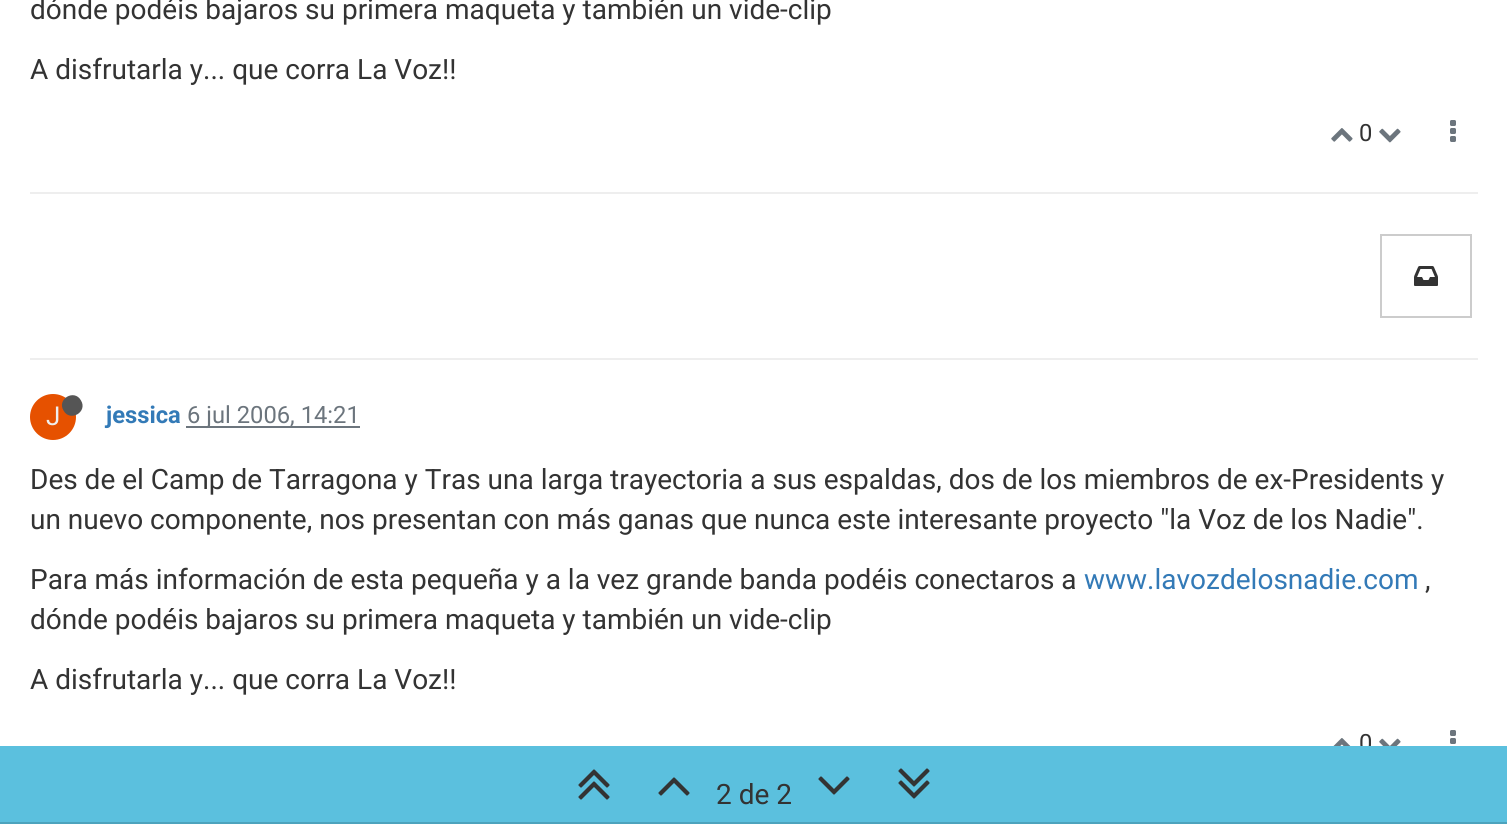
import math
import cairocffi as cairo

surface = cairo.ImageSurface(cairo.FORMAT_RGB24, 1507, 824)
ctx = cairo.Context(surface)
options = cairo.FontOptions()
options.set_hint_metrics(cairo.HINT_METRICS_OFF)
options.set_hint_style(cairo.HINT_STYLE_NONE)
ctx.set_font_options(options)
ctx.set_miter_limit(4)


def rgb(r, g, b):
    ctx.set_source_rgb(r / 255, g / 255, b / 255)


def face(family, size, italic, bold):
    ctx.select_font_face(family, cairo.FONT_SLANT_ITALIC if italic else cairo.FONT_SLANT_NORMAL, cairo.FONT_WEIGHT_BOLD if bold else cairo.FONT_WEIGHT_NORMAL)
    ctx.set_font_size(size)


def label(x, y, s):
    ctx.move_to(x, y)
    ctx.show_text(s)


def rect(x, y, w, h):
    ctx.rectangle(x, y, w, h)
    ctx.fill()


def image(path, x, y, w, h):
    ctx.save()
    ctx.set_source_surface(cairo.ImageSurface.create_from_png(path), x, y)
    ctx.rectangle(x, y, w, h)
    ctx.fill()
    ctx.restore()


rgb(255, 255, 255)
ctx.paint()
face('Roboto', 28, 0, 0)
rgb(51, 51, 51)
label(30, 19, 'dónde podéis bajaros su primera maqueta y también un vide-clip')
label(30, 79, 'A disfrutarla y... que corra La Voz!!')
image('image0.png', 1331, 128, 22, 14)
face('Roboto', 23.75, 0, 0)
label(1359, 141, '0')
image('image1.png', 1379, 128, 22, 15)
image('image2.png', 1450, 120, 6, 22)
rgb(238, 238, 238)
rect(30, 192, 1448, 2)
ctx.rectangle(1381, 235, 90, 82)
rgb(204, 204, 204)
ctx.stroke()
image('image3.png', 1414, 266, 24, 20)
rgb(238, 238, 238)
rect(30, 358, 1448, 2)
rgb(230, 81, 0)
ctx.arc(53, 417, 23, 0, 2 * math.pi)
ctx.fill()
face('Roboto', 26, 0, 0)
rgb(238, 238, 238)
label(46, 425, 'J')
rgb(85, 85, 85)
ctx.new_path()
ctx.move_to(81, 400.5)
ctx.curve_to(88, 412, 70, 422.5, 63.5, 410.5)
ctx.curve_to(56.5, 399, 74.5, 388.5, 81, 400.5)
ctx.close_path()
ctx.fill()
face('Roboto', 23.75, 0, 1)
rgb(51, 122, 183)
label(106, 423, 'jessica')
rgb(108, 117, 125)
rect(186, 426, 174, 2)
face('Roboto', 23.75, 0, 0)
label(187, 423, '6 jul 2006, 14:21')
face('Roboto', 28, 0, 0)
rgb(51, 51, 51)
label(30, 489, 'Des de el Camp de Tarragona y Tras una larga trayectoria a sus espaldas, dos de los miembros de ex-Presidents y')
label(30, 529, 'un nuevo componente, nos presentan con más ganas que nunca este interesante proyecto "la Voz de los Nadie".')
label(30, 589, 'Para más información de esta pequeña y a la vez grande banda podéis conectaros a')
rgb(51, 122, 183)
label(1084, 589, 'www.lavozdelosnadie.com')
rgb(51, 51, 51)
label(1425, 589, ',')
label(30, 629, 'dónde podéis bajaros su primera maqueta y también un vide-clip')
label(30, 689, 'A disfrutarla y... que corra La Voz!!')
image('image4.png', 1333, 738, 18, 8)
face('Roboto', 23.75, 0, 0)
label(1359, 751, '0')
image('image5.png', 1379, 738, 22, 8)
image('image6.png', 1450, 730, 6, 14)
rgb(91, 192, 222)
rect(0, 746, 1507, 76)
rgb(77, 163, 189)
rect(0, 822, 1507, 2)
image('image7.png', 578, 769, 32, 31)
image('image8.png', 658, 777, 32, 19)
face('Roboto', 28, 0, 0)
rgb(51, 51, 51)
label(716, 804, '2 de 2')
image('image9.png', 818, 776, 32, 19)
image('image10.png', 898, 768, 32, 31)
surface.write_to_png('render.png')
